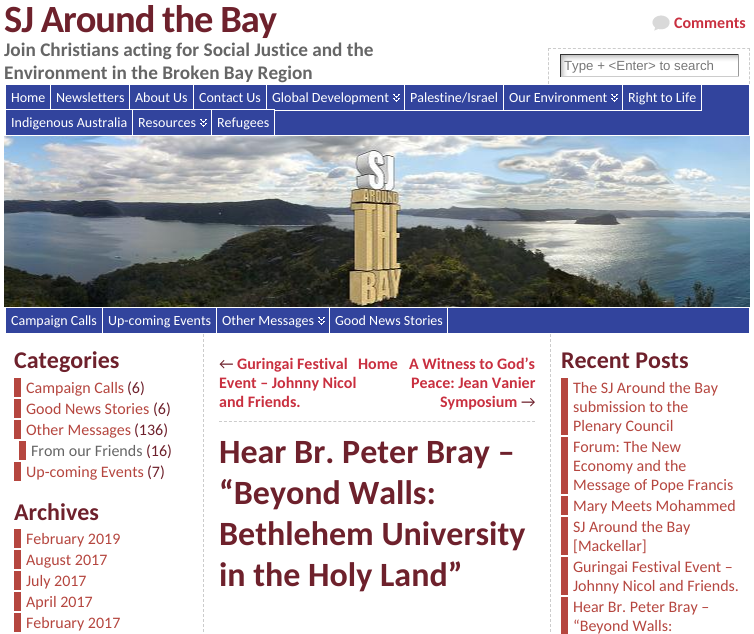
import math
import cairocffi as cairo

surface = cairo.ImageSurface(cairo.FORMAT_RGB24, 754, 634)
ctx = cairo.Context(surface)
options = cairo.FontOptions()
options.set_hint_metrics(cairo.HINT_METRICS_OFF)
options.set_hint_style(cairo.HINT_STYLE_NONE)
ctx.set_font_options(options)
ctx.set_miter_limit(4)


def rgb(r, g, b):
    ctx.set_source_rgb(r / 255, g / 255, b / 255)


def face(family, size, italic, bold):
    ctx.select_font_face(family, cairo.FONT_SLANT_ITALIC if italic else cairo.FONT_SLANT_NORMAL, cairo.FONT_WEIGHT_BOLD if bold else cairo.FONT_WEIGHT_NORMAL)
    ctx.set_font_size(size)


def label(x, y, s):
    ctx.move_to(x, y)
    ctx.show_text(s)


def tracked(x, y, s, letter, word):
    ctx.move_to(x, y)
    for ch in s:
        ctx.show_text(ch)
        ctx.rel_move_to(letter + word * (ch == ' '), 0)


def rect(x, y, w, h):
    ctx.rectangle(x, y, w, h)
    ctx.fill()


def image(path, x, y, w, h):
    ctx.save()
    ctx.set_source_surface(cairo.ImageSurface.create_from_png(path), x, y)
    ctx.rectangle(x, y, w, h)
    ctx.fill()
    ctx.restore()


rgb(255, 255, 255)
ctx.paint()
face('Carlito', 38.5, 0, 1)
rgb(110, 33, 44)
tracked(4, 32, 'SJ Around the Bay', -1, 0)
face('Carlito', 19.25, 0, 1)
rgb(102, 102, 102)
label(4, 56, 'Join Christians acting for Social Justice and the')
label(4, 79, 'Environment in the Broken Bay Region')
image('image0.png', 652, 15, 18, 16)
face('Carlito', 16, 0, 1)
rgb(201, 48, 64)
label(674, 28, 'Comments')
ctx.new_path()
ctx.move_to(548, 48.5)
ctx.line_to(750, 48.5)
rgb(204, 204, 204)
ctx.set_line_width(1)
ctx.set_dash([3, 1.98])
ctx.stroke()
ctx.new_path()
ctx.move_to(749.5, 48)
ctx.line_to(749.5, 84)
ctx.set_dash([3, 1.71])
ctx.stroke()
ctx.new_path()
ctx.move_to(548.5, 48)
ctx.line_to(548.5, 84)
ctx.stroke()
image('image1.png', 561, 55, 177, 21)
rgb(51, 51, 51)
rect(560, 54, 179, 1)
rgb(153, 153, 153)
rect(738, 54, 1, 23)
rgb(204, 204, 204)
rect(560, 76, 179, 1)
rgb(51, 51, 51)
rect(560, 54, 1, 23)
face('Liberation Sans', 13.25, 0, 0)
rgb(119, 119, 119)
label(564, 70, 'Type + <Enter> to search')
rgb(50, 68, 157)
rect(275, 85, 474, 50)
rect(6, 85, 44, 24)
face('Carlito', 14, 0, 0)
rgb(255, 255, 255)
label(11, 102, 'Home')
rgb(50, 68, 157)
rect(51, 85, 78, 24)
rgb(255, 255, 255)
label(56, 102, 'Newsletters')
rgb(50, 68, 157)
rect(130, 85, 63, 24)
rgb(255, 255, 255)
label(135, 102, 'About Us')
rgb(50, 68, 157)
rect(194, 85, 72, 24)
rgb(255, 255, 255)
label(199, 102, 'Contact Us')
rgb(50, 68, 157)
rect(267, 85, 8, 25)
image('image2.png', 393, 94, 7, 8)
ctx.rectangle(266.5, 84.5, 138, 26)
rgb(255, 255, 255)
ctx.set_dash([])
ctx.stroke()
label(272, 102, 'Global Development')
ctx.rectangle(404.5, 84.5, 99, 26)
ctx.stroke()
label(410, 102, 'Palestine/Israel')
image('image2.png', 611, 94, 7, 8)
ctx.rectangle(503.5, 84.5, 119, 26)
ctx.stroke()
label(509, 102, 'Our Environment')
ctx.rectangle(622.5, 84.5, 79, 26)
ctx.stroke()
label(628, 102, 'Right to Life')
rgb(50, 68, 157)
rect(6, 110, 126, 25)
rgb(255, 255, 255)
label(11, 127, 'Indigenous Australia')
rgb(50, 68, 157)
rect(133, 110, 78, 25)
image('image2.png', 200, 119, 7, 8)
rgb(255, 255, 255)
label(138, 127, 'Resources')
rgb(50, 68, 157)
ctx.rectangle(211.5, 109.5, 63, 26)
ctx.fill_preserve()
rgb(255, 255, 255)
ctx.stroke()
label(217, 127, 'Refugees')
image('image3.png', 4, 136, 746, 171)
rgb(50, 68, 157)
rect(448, 308, 301, 25)
rect(6, 308, 96, 25)
rgb(255, 255, 255)
label(11, 325, 'Campaign Calls')
rgb(50, 68, 157)
rect(103, 308, 113, 25)
rgb(255, 255, 255)
label(108, 325, 'Up-coming Events')
rgb(50, 68, 157)
rect(217, 308, 112, 25)
image('image2.png', 318, 317, 7, 8)
rgb(255, 255, 255)
label(222, 325, 'Other Messages')
rgb(50, 68, 157)
rect(330, 308, 117, 25)
rgb(255, 255, 255)
label(335, 325, 'Good News Stories')
ctx.new_path()
ctx.move_to(203.5, 334)
ctx.line_to(203.5, 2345)
rgb(204, 204, 204)
ctx.set_dash([3, 2])
ctx.stroke()
face('Carlito', 24, 0, 1)
rgb(110, 33, 44)
label(14, 368, 'Categories')
face('Carlito', 16, 0, 0)
rgb(181, 70, 63)
label(26, 393, 'Campaign Calls')
rect(14, 378, 7, 19)
rgb(110, 33, 44)
label(127, 393, '(6)')
rgb(181, 70, 63)
label(26, 414, 'Good News Stories')
rect(14, 399, 7, 19)
rgb(110, 33, 44)
label(153, 414, '(6)')
rgb(181, 70, 63)
label(26, 435, 'Other Messages')
rect(14, 420, 7, 19)
rgb(110, 33, 44)
label(134, 435, '(136)')
rgb(102, 102, 102)
label(31, 456, 'From our Friends')
rgb(181, 70, 63)
rect(19, 441, 7, 19)
rgb(110, 33, 44)
label(146, 456, '(16)')
rgb(181, 70, 63)
label(26, 477, 'Up-coming Events')
rect(14, 462, 7, 19)
rgb(110, 33, 44)
label(147, 477, '(7)')
face('Carlito', 24, 0, 1)
label(14, 520, 'Archives')
rgb(181, 70, 63)
rect(14, 529, 7, 19)
face('Carlito', 16, 0, 0)
label(26, 544, 'February 2019')
rect(14, 550, 7, 19)
label(26, 565, 'August 2017')
rect(14, 571, 7, 19)
label(26, 586, 'July 2017')
rect(14, 592, 7, 19)
label(26, 607, 'April 2017')
rect(14, 613, 7, 19)
label(26, 628, 'February 2017')
ctx.new_path()
ctx.move_to(219, 421.5)
ctx.line_to(535, 421.5)
rgb(204, 204, 204)
ctx.set_dash([3, 1.97])
ctx.stroke()
rgb(110, 33, 44)
label(219, 369, '←')
face('Carlito', 16, 0, 1)
rgb(201, 48, 64)
label(237, 369, 'Guringai Festival')
label(219, 388, 'Event – Johnny Nicol')
label(219, 407, 'and Friends.')
label(358, 369, 'Home')
label(409, 369, 'A Witness to God’s')
label(411, 388, 'Peace: Jean Vanier')
label(440, 407, 'Symposium')
face('Carlito', 16, 0, 0)
rgb(110, 33, 44)
label(521, 407, '→')
face('Carlito', 34, 0, 1)
label(219, 463, 'Hear Br. Peter Bray –')
label(219, 504, '“Beyond Walls:')
label(219, 545, 'Bethlehem University')
label(219, 586, 'in the Holy Land”')
ctx.new_path()
ctx.move_to(550.5, 334)
ctx.line_to(550.5, 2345)
rgb(204, 204, 204)
ctx.set_dash([3, 2])
ctx.stroke()
face('Carlito', 24, 0, 1)
rgb(110, 33, 44)
label(561, 368, 'Recent Posts')
rgb(181, 70, 63)
rect(561, 378, 7, 57)
face('Carlito', 16, 0, 0)
label(573, 393, 'The SJ Around the Bay')
label(573, 412, 'submission to the')
label(573, 431, 'Plenary Council')
rect(561, 437, 7, 57)
label(573, 452, 'Forum: The New')
label(573, 471, 'Economy and the')
label(573, 490, 'Message of Pope Francis')
rect(561, 496, 7, 19)
label(573, 511, 'Mary Meets Mohammed')
rect(561, 517, 7, 38)
label(573, 532, 'SJ Around the Bay')
label(573, 551, '[Mackellar]')
rect(561, 557, 7, 38)
label(573, 572, 'Guringai Festival Event –')
label(573, 591, 'Johnny Nicol and Friends.')
rect(561, 597, 7, 37)
label(573, 612, 'Hear Br. Peter Bray –')
label(573, 631, '“Beyond Walls:')
surface.write_to_png('render.png')
